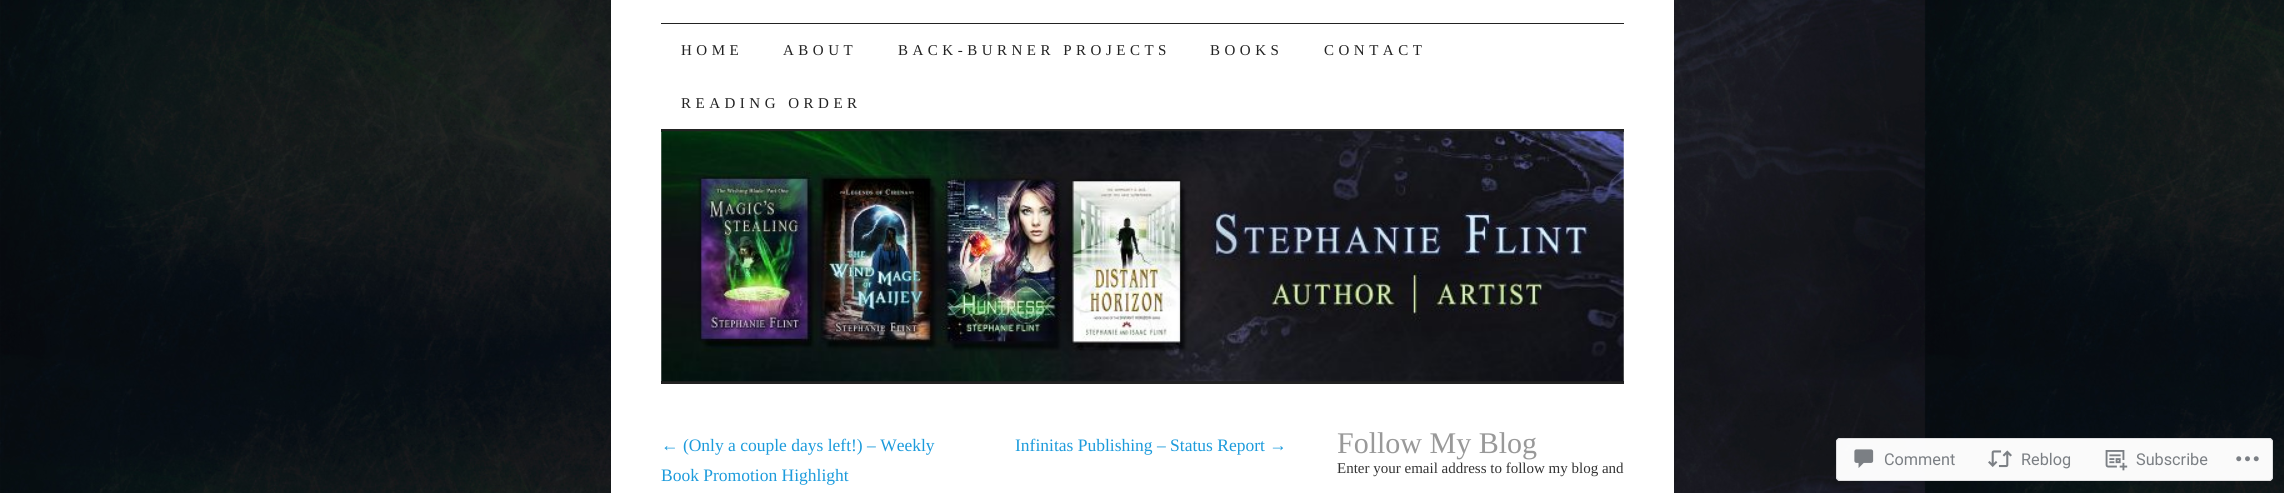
import math
import cairocffi as cairo

surface = cairo.ImageSurface(cairo.FORMAT_RGB24, 2284, 493)
ctx = cairo.Context(surface)
options = cairo.FontOptions()
options.set_hint_metrics(cairo.HINT_METRICS_OFF)
options.set_hint_style(cairo.HINT_STYLE_NONE)
ctx.set_font_options(options)
ctx.set_miter_limit(4)


def rgb(r, g, b):
    ctx.set_source_rgb(r / 255, g / 255, b / 255)


def face(family, size, italic, bold):
    ctx.select_font_face(family, cairo.FONT_SLANT_ITALIC if italic else cairo.FONT_SLANT_NORMAL, cairo.FONT_WEIGHT_BOLD if bold else cairo.FONT_WEIGHT_NORMAL)
    ctx.set_font_size(size)


def label(x, y, s):
    ctx.move_to(x, y)
    ctx.show_text(s)


def tracked(x, y, s, letter, word):
    ctx.move_to(x, y)
    for ch in s:
        ctx.show_text(ch)
        ctx.rel_move_to(letter + word * (ch == ' '), 0)


def rect(x, y, w, h):
    ctx.rectangle(x, y, w, h)
    ctx.fill()


def rrect(x, y, w, h, r):
    ctx.new_sub_path()
    for i, (u, v) in enumerate([(x + w - r, y + h - r), (x + r, y + h - r), (x + r, y + r), (x + w - r, y + r)]):
        ctx.arc(u, v, r, i * math.pi / 2, (i + 1) * math.pi / 2)
    ctx.close_path()


def image(path, x, y, w, h):
    ctx.save()
    ctx.set_source_surface(cairo.ImageSurface.create_from_png(path), x, y)
    ctx.rectangle(x, y, w, h)
    ctx.fill()
    ctx.restore()


rgb(255, 255, 255)
ctx.paint()
image('image0.png', 0, 0, 2284, 493)
rgb(255, 255, 255)
rect(611, 0, 1063, 493)
rgb(34, 34, 34)
rect(661, 23, 963, 1)
rect(661, 129, 963, 3)
face('Liberation Serif', 15, 0, 0)
tracked(681, 55, 'HOME', 4.5, 0)
tracked(783, 55, 'ABOUT', 4.5, 0)
tracked(898, 55, 'BACK-BURNER PROJECTS', 4.5, 0)
tracked(1210, 55, 'BOOKS', 4.5, 0)
tracked(1324, 55, 'CONTACT', 4.5, 0)
tracked(681, 108, 'READING ORDER', 4.5, 0)
rect(661, 381, 963, 3)
image('image1.png', 661, 131, 963, 251)
face('Liberation Serif', 17.5, 0, 0)
rgb(28, 155, 220)
label(661, 451, '← (Only a couple days left!) – Weekly')
label(661, 481, 'Book Promotion Highlight')
label(1015, 451, 'Infinitas Publishing – Status Report →')
face('Liberation Serif', 30, 0, 0)
rgb(153, 153, 153)
label(1337, 453, 'Follow My Blog')
face('Liberation Serif', 15, 0, 0)
rgb(51, 51, 51)
label(1337, 473, 'Enter your email address to follow my blog and')
ctx.set_source_rgba(1, 1, 1, 0.98)
rrect(1836, 438, 437, 43, 4)
ctx.fill()
rrect(1836.5, 438.5, 436, 42, 3.5)
ctx.set_source_rgba(0.863, 0.863, 0.871, 0.98)
ctx.set_line_width(1)
ctx.stroke()
image('image2.png', 1854, 449, 20, 19)
face('Roboto', 16.25, 0, 0)
rgb(123, 127, 132)
label(1884, 465, 'Comment')
image('image3.png', 1988, 450, 24, 18)
label(2021, 465, 'Reblog')
image('image4.png', 2105, 450, 23, 21)
label(2136, 465, 'Subscribe')
image('image5.png', 2236, 456, 23, 6)
surface.write_to_png('render.png')
